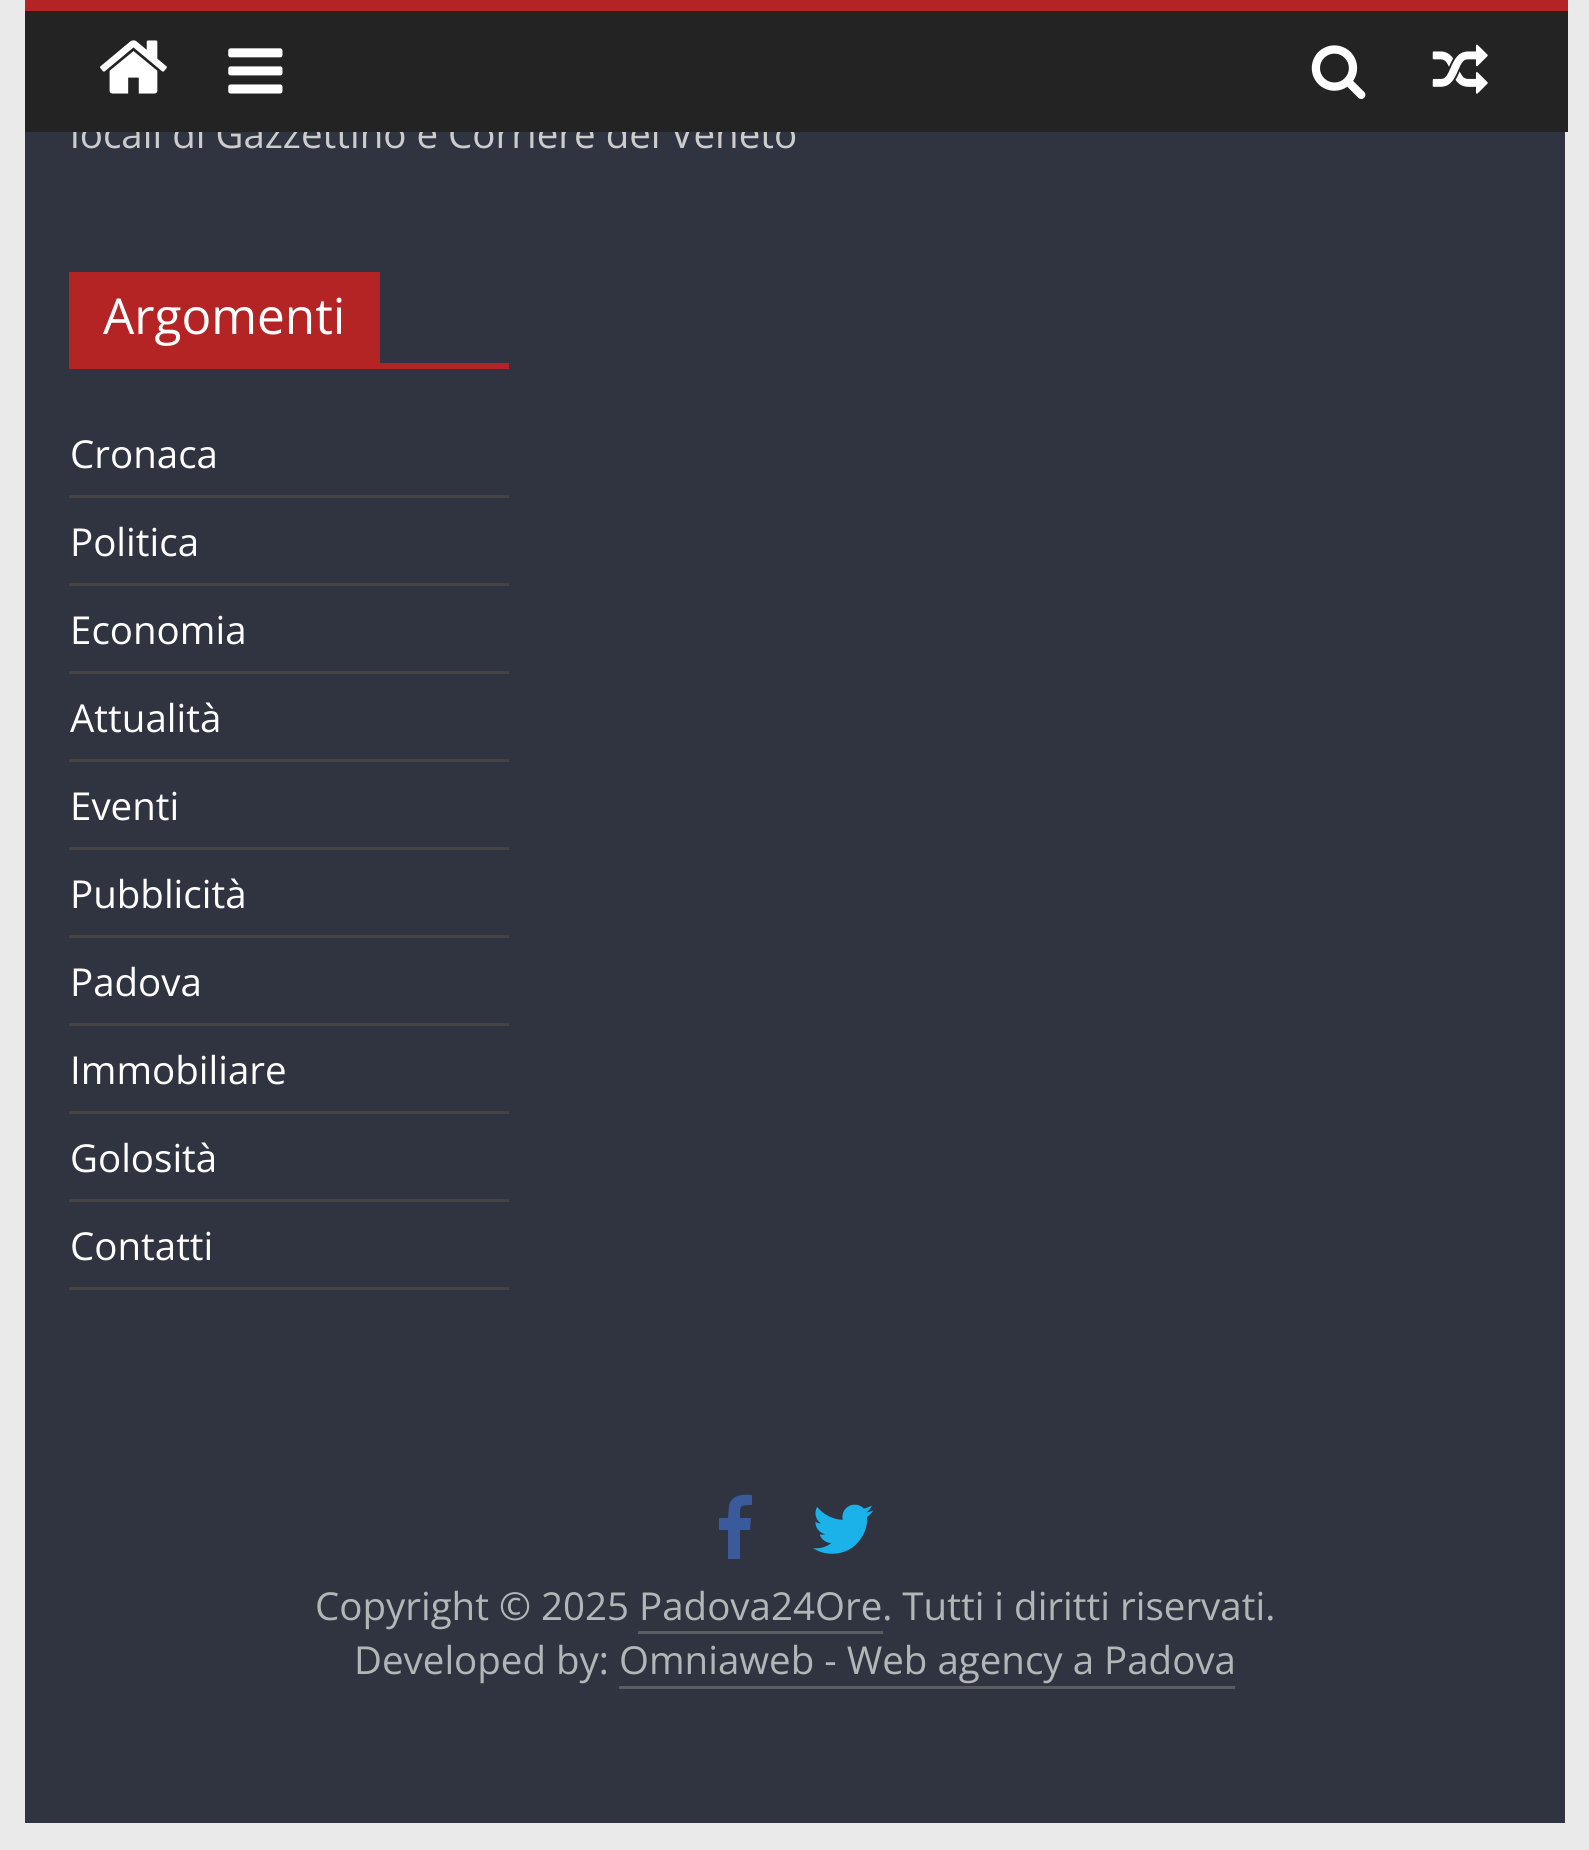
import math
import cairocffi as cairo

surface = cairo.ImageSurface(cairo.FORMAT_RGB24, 1589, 1850)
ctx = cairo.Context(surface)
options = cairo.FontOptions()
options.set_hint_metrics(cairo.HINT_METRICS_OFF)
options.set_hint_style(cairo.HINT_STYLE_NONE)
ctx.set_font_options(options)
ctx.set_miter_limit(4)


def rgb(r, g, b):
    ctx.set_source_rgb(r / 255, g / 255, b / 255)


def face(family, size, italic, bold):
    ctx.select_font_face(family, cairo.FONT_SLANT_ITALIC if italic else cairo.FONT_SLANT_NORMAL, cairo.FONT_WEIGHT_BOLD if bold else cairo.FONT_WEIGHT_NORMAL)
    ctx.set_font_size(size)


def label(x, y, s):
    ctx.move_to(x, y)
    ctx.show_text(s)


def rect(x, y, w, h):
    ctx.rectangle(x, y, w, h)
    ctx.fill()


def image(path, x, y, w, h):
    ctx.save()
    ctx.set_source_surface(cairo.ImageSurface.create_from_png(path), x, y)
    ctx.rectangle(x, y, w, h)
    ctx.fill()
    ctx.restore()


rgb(234, 234, 234)
ctx.paint()
rgb(48, 52, 64)
rect(25, 132, 1540, 1691)
face('Open Sans', 38.5, 0, 0)
rgb(204, 204, 204)
label(70, 148, 'locali di Gazzettino e Corriere del Veneto')
rgb(35, 35, 35)
rect(25, 11, 1543, 121)
rgb(181, 36, 36)
rect(25, 0, 1543, 11)
image('image0.png', 100, 40, 67, 54)
image('image1.png', 228, 48, 55, 46)
image('image2.png', 1311, 45, 55, 54)
image('image3.png', 1432, 44, 56, 50)
rect(69, 363, 440, 6)
rect(69, 272, 311, 91)
face('Open Sans', 49.5, 0, 0)
rgb(255, 255, 255)
label(103, 334, 'Argomenti')
rgb(68, 68, 68)
rect(69, 495, 440, 3)
face('Open Sans', 38.5, 0, 0)
rgb(255, 255, 255)
label(70, 468, 'Cronaca')
rgb(68, 68, 68)
rect(69, 583, 440, 3)
rgb(255, 255, 255)
label(70, 556, 'Politica')
rgb(68, 68, 68)
rect(69, 671, 440, 3)
rgb(255, 255, 255)
label(70, 644, 'Economia')
rgb(68, 68, 68)
rect(69, 759, 440, 3)
rgb(255, 255, 255)
label(70, 732, 'Attualità')
rgb(68, 68, 68)
rect(69, 847, 440, 3)
rgb(255, 255, 255)
label(70, 820, 'Eventi')
rgb(68, 68, 68)
rect(69, 935, 440, 3)
rgb(255, 255, 255)
label(70, 908, 'Pubblicità')
rgb(68, 68, 68)
rect(69, 1023, 440, 3)
rgb(255, 255, 255)
label(70, 996, 'Padova')
rgb(68, 68, 68)
rect(69, 1111, 440, 3)
rgb(255, 255, 255)
label(70, 1084, 'Immobiliare')
rgb(68, 68, 68)
rect(69, 1199, 440, 3)
rgb(255, 255, 255)
label(70, 1172, 'Golosità')
rgb(68, 68, 68)
rect(69, 1287, 440, 3)
rgb(255, 255, 255)
label(70, 1260, 'Contatti')
rgb(59, 90, 155)
ctx.new_path()
ctx.move_to(752, 1495)
ctx.line_to(752, 1505)
ctx.curve_to(739, 1505, 740, 1506, 740, 1518)
ctx.line_to(751, 1518)
ctx.line_to(750, 1530)
ctx.line_to(740, 1530)
ctx.line_to(740, 1559)
ctx.line_to(728, 1559)
ctx.line_to(728, 1530)
ctx.line_to(719, 1530)
ctx.line_to(719, 1518)
ctx.line_to(728, 1518)
ctx.line_to(729, 1506)
ctx.curve_to(731, 1495, 742, 1494, 752, 1495)
ctx.close_path()
ctx.fill()
image('image4.png', 813, 1504, 61, 50)
rgb(177, 182, 182)
label(315, 1620, 'Copyright © 2025 Padova24Ore. Tutti i diritti riservati.')
rgb(90, 93, 98)
rect(638, 1631, 245, 3)
rgb(177, 182, 182)
label(354, 1674, 'Developed by: Omniaweb - Web agency a Padova')
rgb(90, 93, 98)
rect(619, 1686, 616, 3)
surface.write_to_png('render.png')
